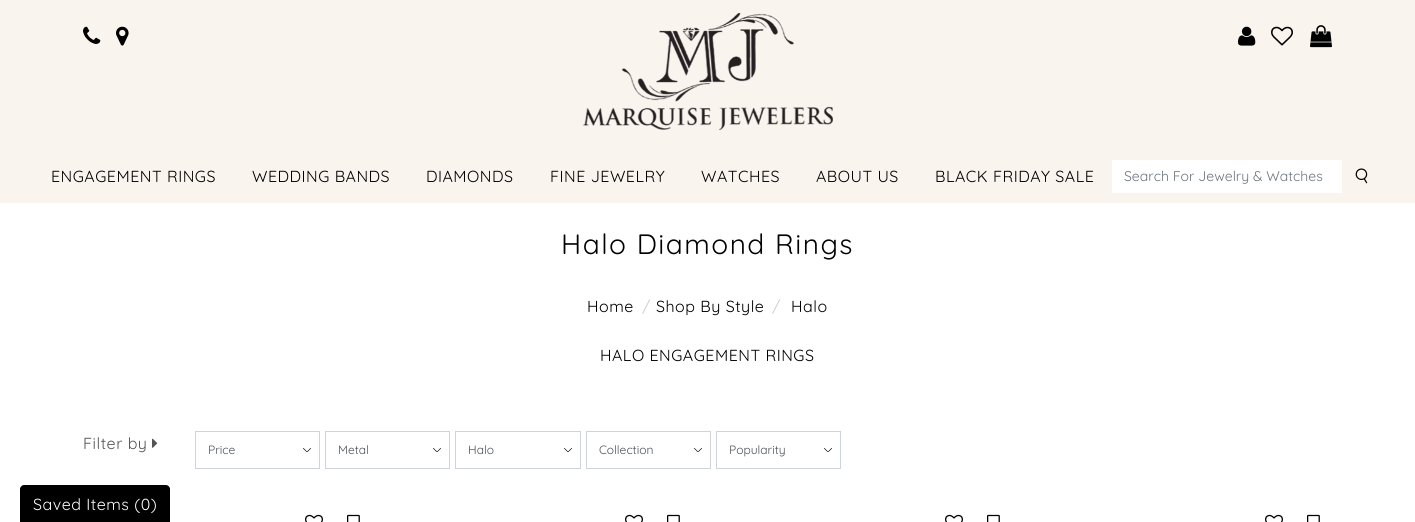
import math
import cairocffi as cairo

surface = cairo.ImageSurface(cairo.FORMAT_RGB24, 1415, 522)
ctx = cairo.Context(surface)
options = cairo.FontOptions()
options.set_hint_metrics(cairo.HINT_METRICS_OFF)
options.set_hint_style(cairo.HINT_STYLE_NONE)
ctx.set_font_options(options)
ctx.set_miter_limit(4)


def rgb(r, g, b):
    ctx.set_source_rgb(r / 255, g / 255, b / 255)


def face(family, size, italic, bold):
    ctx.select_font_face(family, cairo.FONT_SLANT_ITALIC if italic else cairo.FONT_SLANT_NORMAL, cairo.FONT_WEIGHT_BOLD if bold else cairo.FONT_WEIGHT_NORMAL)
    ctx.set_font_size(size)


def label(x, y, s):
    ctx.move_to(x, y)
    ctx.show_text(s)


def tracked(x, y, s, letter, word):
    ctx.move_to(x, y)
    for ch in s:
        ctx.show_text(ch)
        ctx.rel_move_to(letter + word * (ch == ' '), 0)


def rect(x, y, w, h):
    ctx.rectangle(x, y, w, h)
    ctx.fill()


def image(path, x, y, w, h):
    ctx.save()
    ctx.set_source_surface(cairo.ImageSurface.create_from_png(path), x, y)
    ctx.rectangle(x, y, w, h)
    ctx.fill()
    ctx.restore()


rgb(255, 255, 255)
ctx.paint()
rgb(250, 244, 239)
rect(0, 0, 1415, 203)
image('image0.png', 583, 13, 250, 117)
image('image1.png', 83, 26, 18, 18)
image('image2.png', 116, 26, 13, 20)
image('image3.png', 1238, 26, 18, 20)
image('image4.png', 1271, 26, 22, 20)
image('image5.png', 1310, 25, 22, 23)
face('Quicksand', 16, 0, 0)
rgb(0, 0, 0)
tracked(51, 182, 'ENGAGEMENT RINGS', 0.5, 0)
tracked(252, 182, 'WEDDING BANDS', 0.5, 0)
tracked(426, 182, 'DIAMONDS', 0.5, 0)
tracked(550, 182, 'FINE JEWELRY', 0.5, 0)
tracked(701, 182, 'WATCHES', 0.5, 0)
tracked(816, 182, 'ABOUT US', 0.5, 0)
tracked(935, 182, 'BLACK FRIDAY SALE', 0.5, 0)
rgb(255, 255, 255)
rect(1112, 160, 230, 33)
face('Quicksand', 14, 0, 0)
rgb(108, 117, 125)
label(1124, 181, 'Search For Jewelry & Watches')
image('image6.png', 1355, 168, 13, 16)
face('Quicksand', 28, 0, 0)
rgb(0, 0, 0)
tracked(561, 254, 'Halo Diamond Rings', 1.5, 0)
face('Quicksand', 16, 0, 0)
tracked(587, 312, 'Home', 0.5, 0)
rgb(204, 204, 204)
tracked(642, 312, '/', 0.5, 0)
rgb(0, 0, 0)
tracked(656, 312, 'Shop By Style', 0.5, 0)
rgb(204, 204, 204)
tracked(772, 312, '/', 0.5, 0)
rgb(0, 0, 0)
tracked(791, 312, 'Halo', 0.5, 0)
tracked(600, 361, 'HALO ENGAGEMENT RINGS', 0.5, 0)
rgb(84, 84, 84)
tracked(83, 449, 'Filter by', 0.5, 0)
image('image7.png', 152, 438, 6, 10)
image('image8.png', 303, 448, 8, 4)
ctx.rectangle(195.5, 431.5, 124, 37)
rgb(206, 212, 218)
ctx.set_line_width(1)
ctx.stroke()
face('Quicksand', 12, 0, 0)
rgb(73, 80, 87)
label(208, 454, 'Price')
image('image8.png', 433, 448, 8, 4)
ctx.rectangle(325.5, 431.5, 124, 37)
rgb(206, 212, 218)
ctx.stroke()
rgb(73, 80, 87)
label(338, 454, 'Metal')
image('image8.png', 564, 448, 8, 4)
ctx.rectangle(455.5, 431.5, 125, 37)
rgb(206, 212, 218)
ctx.stroke()
rgb(73, 80, 87)
label(468, 454, 'Halo')
image('image8.png', 694, 448, 8, 4)
ctx.rectangle(586.5, 431.5, 124, 37)
rgb(206, 212, 218)
ctx.stroke()
rgb(73, 80, 87)
label(599, 454, 'Collection')
image('image8.png', 824, 448, 8, 4)
ctx.rectangle(716.5, 431.5, 124, 37)
rgb(206, 212, 218)
ctx.stroke()
rgb(73, 80, 87)
label(729, 454, 'Popularity')
image('image9.png', 305, 514, 18, 8)
image('image10.png', 347, 514, 13, 8)
image('image9.png', 625, 514, 18, 8)
image('image10.png', 667, 514, 13, 8)
image('image9.png', 945, 514, 18, 8)
image('image10.png', 987, 514, 13, 8)
image('image9.png', 1265, 514, 18, 8)
image('image10.png', 1307, 514, 13, 8)
rgb(0, 0, 0)
ctx.new_path()
ctx.move_to(24, 485)
ctx.line_to(166, 485)
ctx.curve_to(168, 485, 170, 487, 170, 489)
ctx.line_to(170, 522)
ctx.line_to(20, 522)
ctx.line_to(20, 489)
ctx.curve_to(20, 487, 22, 485, 24, 485)
ctx.close_path()
ctx.fill()
face('Quicksand', 16, 0, 0)
rgb(255, 255, 255)
tracked(33, 510, 'Saved Items (0)', 0.5, 0)
surface.write_to_png('render.png')
